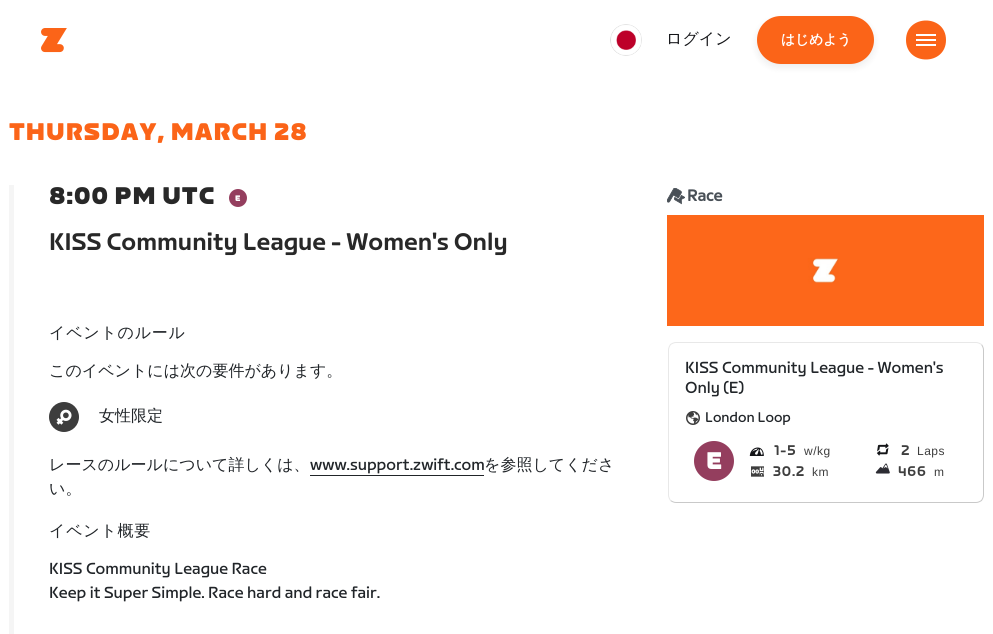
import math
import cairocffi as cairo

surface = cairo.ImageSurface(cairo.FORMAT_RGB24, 993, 634)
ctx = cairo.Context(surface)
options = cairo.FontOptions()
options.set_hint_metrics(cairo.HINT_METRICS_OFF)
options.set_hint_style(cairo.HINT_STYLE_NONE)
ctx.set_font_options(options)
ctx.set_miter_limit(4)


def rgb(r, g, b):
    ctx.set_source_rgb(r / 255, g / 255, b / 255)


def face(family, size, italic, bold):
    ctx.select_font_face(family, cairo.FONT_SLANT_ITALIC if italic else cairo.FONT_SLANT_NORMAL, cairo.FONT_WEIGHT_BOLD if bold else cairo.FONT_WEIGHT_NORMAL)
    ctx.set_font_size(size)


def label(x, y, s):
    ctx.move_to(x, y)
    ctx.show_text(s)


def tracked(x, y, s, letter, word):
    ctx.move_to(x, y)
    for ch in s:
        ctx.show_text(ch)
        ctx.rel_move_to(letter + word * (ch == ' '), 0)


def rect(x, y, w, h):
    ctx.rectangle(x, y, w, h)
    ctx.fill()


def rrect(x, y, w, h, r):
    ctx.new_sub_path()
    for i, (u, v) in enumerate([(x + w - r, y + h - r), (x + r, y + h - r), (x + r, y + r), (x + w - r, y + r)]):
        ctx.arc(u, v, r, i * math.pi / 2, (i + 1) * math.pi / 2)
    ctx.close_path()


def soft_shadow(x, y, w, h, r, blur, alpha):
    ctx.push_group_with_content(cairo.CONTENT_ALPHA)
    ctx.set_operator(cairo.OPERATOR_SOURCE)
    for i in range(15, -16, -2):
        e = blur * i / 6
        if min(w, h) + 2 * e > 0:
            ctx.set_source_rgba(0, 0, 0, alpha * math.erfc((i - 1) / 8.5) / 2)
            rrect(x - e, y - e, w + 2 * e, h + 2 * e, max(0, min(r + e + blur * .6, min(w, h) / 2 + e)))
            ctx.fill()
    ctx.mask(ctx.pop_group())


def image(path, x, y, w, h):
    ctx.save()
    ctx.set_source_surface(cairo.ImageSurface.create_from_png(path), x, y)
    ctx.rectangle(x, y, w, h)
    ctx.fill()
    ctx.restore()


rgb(255, 255, 255)
ctx.paint()
image('image0.png', 41, 28, 26, 25)
image('image1.png', 610, 24, 32, 32)
face('WenQuanYi Zen Hei Medium', 16, 0, 0)
rgb(20, 21, 24)
label(666, 44, 'ログイン')
rgb(0, 0, 0)
soft_shadow(757, 20, 117, 47, 23.5, 4, 0.08)
rgb(251, 100, 24)
rrect(757, 16, 117, 48, 24)
ctx.fill()
face('WenQuanYi Zen Hei', 13.75, 0, 1)
rgb(255, 255, 255)
label(781, 44, 'はじめよう')
rgb(251, 100, 24)
ctx.new_path()
ctx.move_to(906, 40)
ctx.curve_to(906, 14, 946, 14, 946, 40)
ctx.curve_to(946, 66, 906, 66, 906, 40)
ctx.close_path()
ctx.fill()
rgb(255, 255, 255)
rect(916, 34, 20, 2)
rect(916, 39, 20, 2)
rect(916, 44, 20, 2)
face('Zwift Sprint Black', 24, 0, 0)
rgb(251, 100, 24)
tracked(9, 140, 'THURSDAY, MARCH 28', 1, 0)
rgb(245, 245, 245)
rect(9, 185, 5, 449)
rgb(40, 40, 40)
tracked(49, 204, '8:00 PM UTC', 1, 0)
rgb(148, 62, 94)
ctx.new_path()
ctx.arc(238, 198, 9, 0, 2 * math.pi)
ctx.fill()
image('image2.png', 235, 195, 6, 6)
face('Zwift Sprint Medium', 24, 0, 0)
rgb(40, 40, 40)
label(49, 250, 'KISS Community League - Women\'s Only')
image('image3.png', 667, 188, 18, 17)
face('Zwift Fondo', 16, 0, 1)
rgb(73, 80, 87)
label(687, 201, 'Race')
image('image4.png', 667, 215, 317, 111)
face('WenQuanYi Zen Hei Medium', 16, 0, 0)
rgb(33, 37, 41)
tracked(49, 338, 'イベントのルール', 0.75, 0)
label(49, 376, 'このイベントには次の要件があります。')
image('image5.png', 49, 402, 30, 30)
label(99, 421, '女性限定')
label(49, 470, 'レースのルールについて詳しくは、')
face('Zwift Sprint', 16, 0, 0)
label(310, 470, 'www.support.zwift.com')
rect(310, 475, 174, 1)
face('WenQuanYi Zen Hei Medium', 16, 0, 0)
label(484, 470, 'を参照してくださ')
label(49, 494, 'い。')
tracked(49, 536, 'イベント概要', 0.75, 0)
face('Zwift Sprint', 16, 0, 0)
label(49, 574, 'KISS Community League Race')
label(49, 598, 'Keep it Super Simple. Race hard and race fair.')
ctx.new_path()
ctx.move_to(981.5, 344.5)
ctx.curve_to(982.5, 346, 983.5, 348, 983.5, 350)
ctx.line_to(983.5, 495)
ctx.curve_to(983.5, 497, 982.5, 499, 981.5, 500.5)
ctx.curve_to(980, 501.5, 978, 502.5, 976, 502.5)
ctx.line_to(676, 502.5)
ctx.curve_to(674, 502.5, 672, 501.5, 670.5, 500.5)
rgb(201, 201, 201)
ctx.set_line_width(1)
ctx.stroke()
ctx.new_path()
ctx.move_to(670.5, 500.5)
ctx.curve_to(669.5, 499, 668.5, 497, 668.5, 495)
ctx.line_to(668.5, 350)
ctx.curve_to(668.5, 348, 669.5, 346, 670.5, 344.5)
ctx.curve_to(672, 343.5, 674, 342.5, 676, 342.5)
ctx.line_to(976, 342.5)
ctx.curve_to(978, 342.5, 980, 343.5, 981.5, 344.5)
rgb(232, 232, 232)
ctx.stroke()
rgb(33, 37, 41)
label(685, 373, 'KISS Community League - Women\'s')
label(685, 393, 'Only (E)')
image('image6.png', 686, 411, 14, 14)
face('Zwift Sprint', 14, 0, 0)
label(705, 422, 'London Loop')
rgb(148, 62, 94)
ctx.new_path()
ctx.arc(714, 461, 20, 0, 2 * math.pi)
ctx.fill()
image('image7.png', 707, 452, 15, 17)
image('image8.png', 749, 447, 15, 9)
face('Zwift Sprint Medium', 14, 0, 0)
rgb(62, 62, 62)
tracked(774, 455, '1-5', 0.75, 0)
face('Liberation Sans', 12, 0, 0)
tracked(804, 455, 'w/kg', 0.5, 0)
image('image9.png', 876, 443, 13, 13)
face('Zwift Sprint Medium', 14, 0, 0)
tracked(901, 455, '2', 0.75, 0)
face('Liberation Sans', 12, 0, 0)
tracked(917, 455, 'Laps', 0.5, 0)
image('image10.png', 751, 466, 13, 11)
face('Zwift Sprint Medium', 14, 0, 0)
tracked(773, 476, '30.2', 0.75, 0)
face('Liberation Sans', 12, 0, 0)
tracked(812, 476, 'km', 0.5, 0)
image('image11.png', 875, 463, 15, 11)
face('Zwift Sprint Medium', 14, 0, 0)
tracked(898, 476, '466', 0.75, 0)
face('Liberation Sans', 12, 0, 0)
tracked(934, 476, 'm', 0.5, 0)
surface.write_to_png('render.png')
